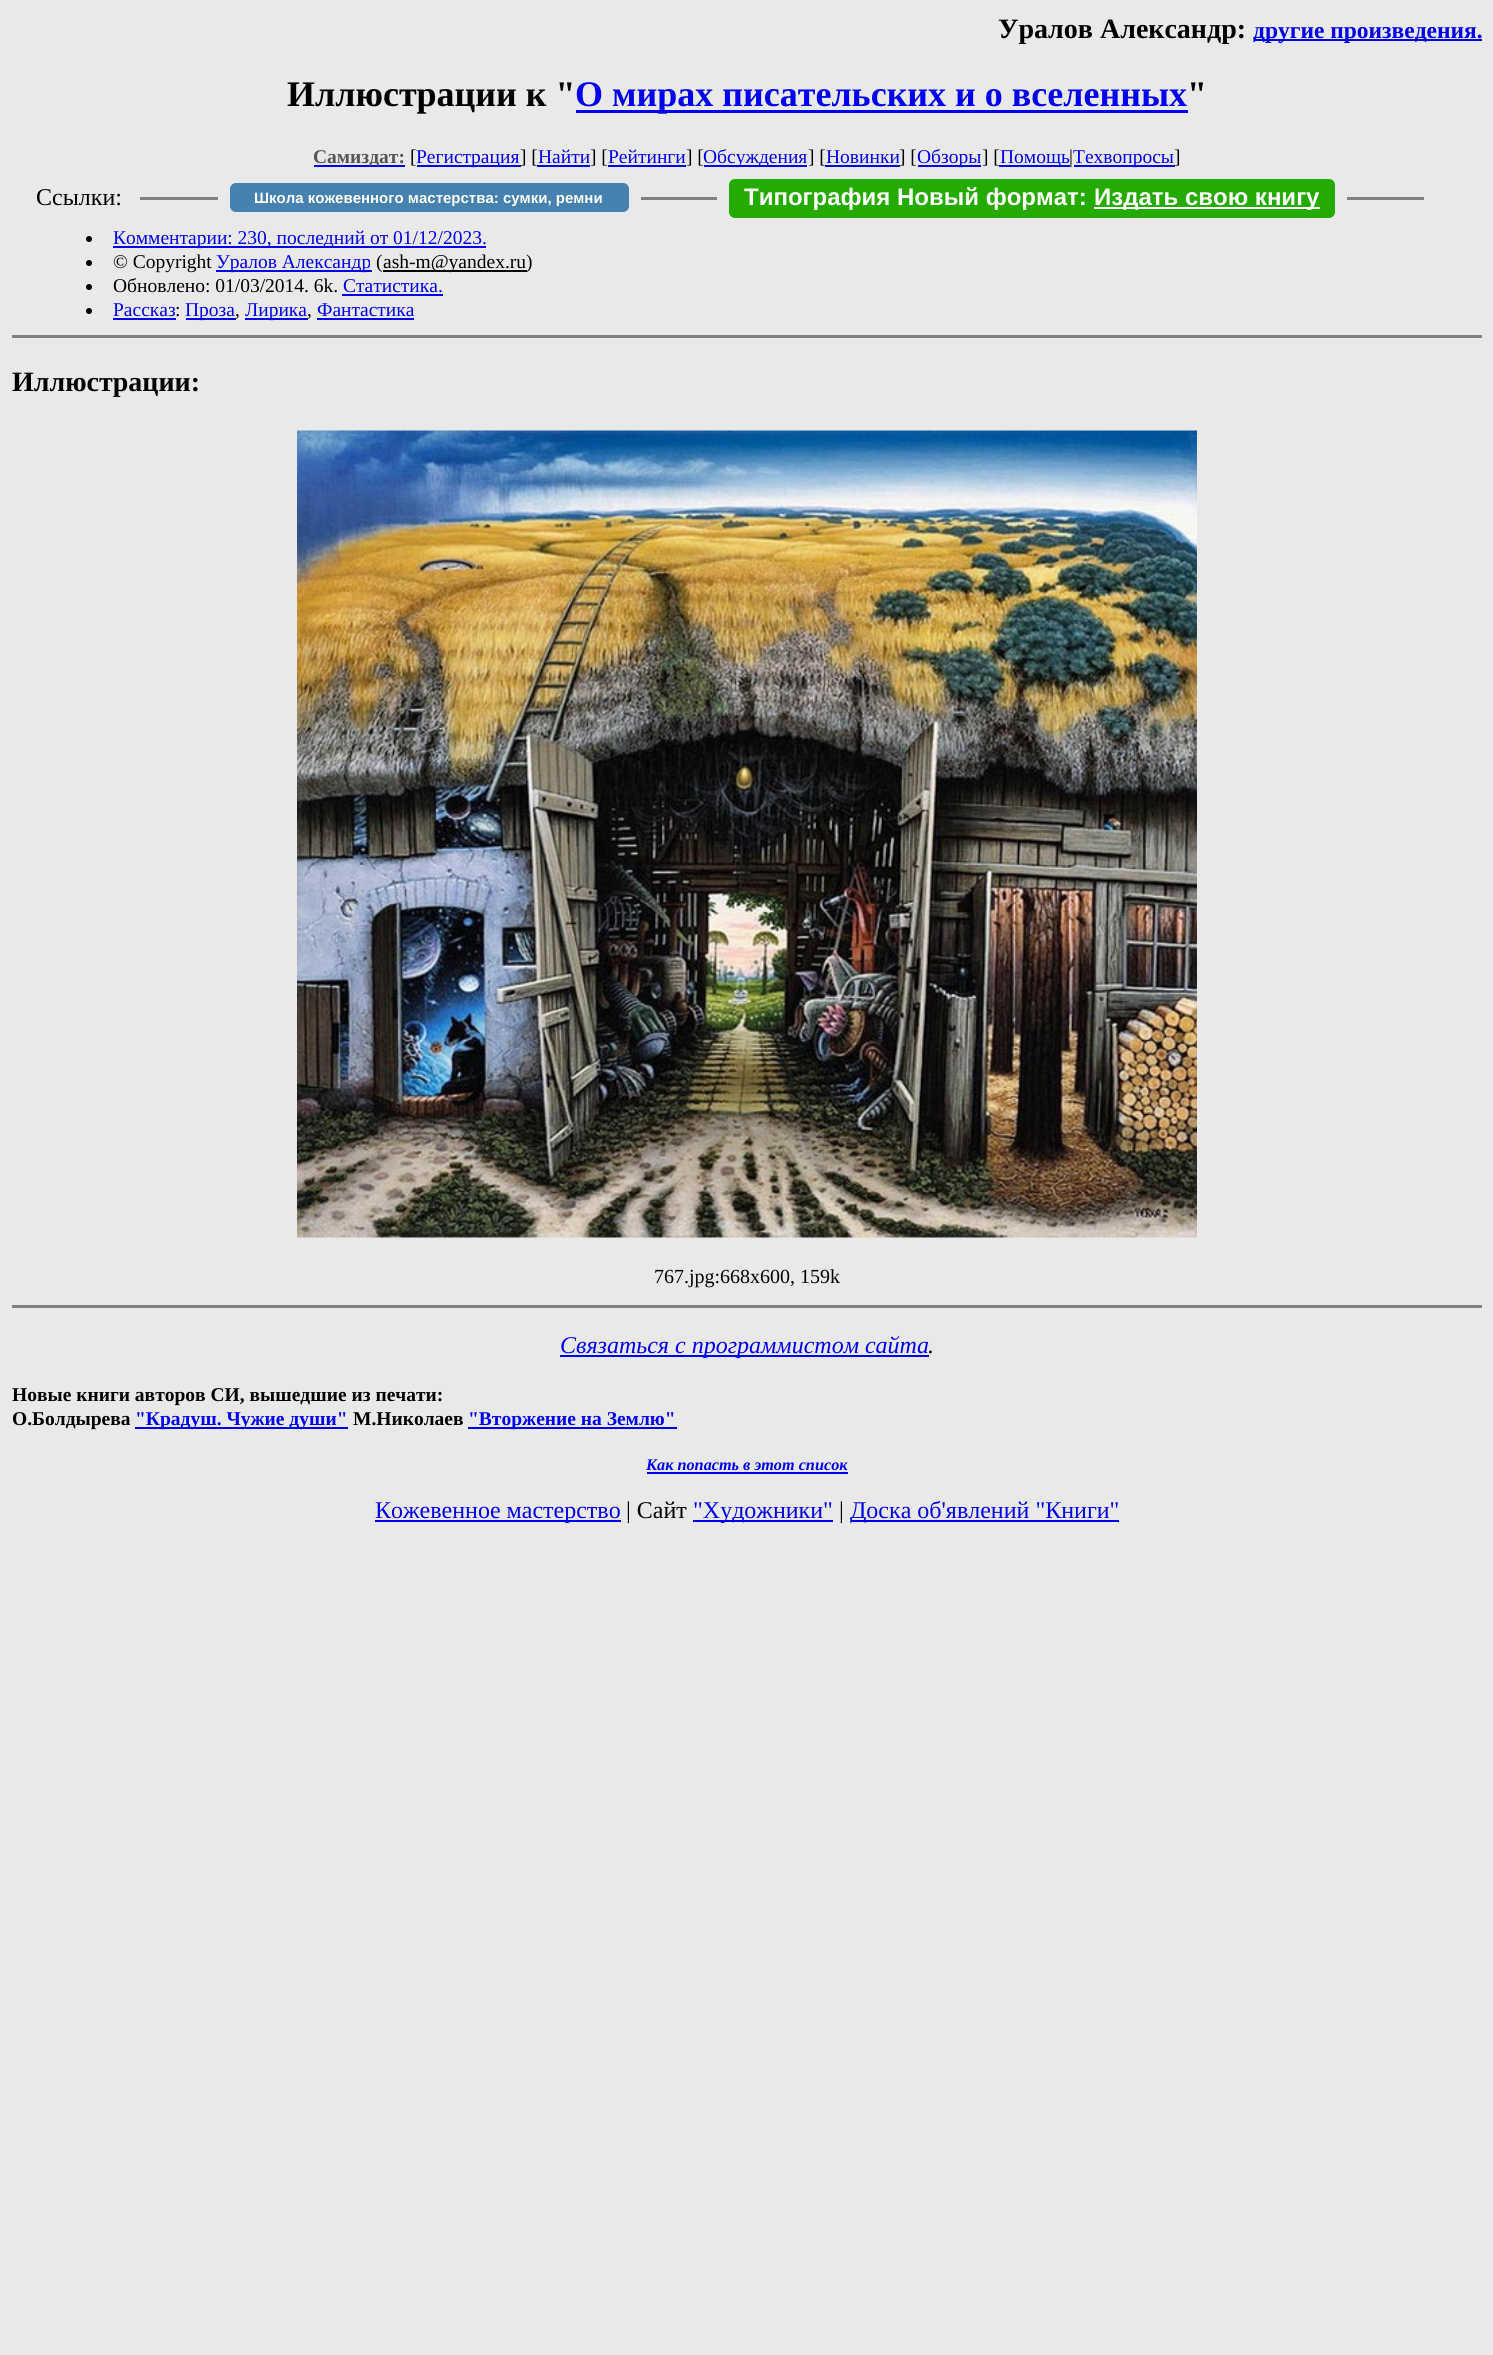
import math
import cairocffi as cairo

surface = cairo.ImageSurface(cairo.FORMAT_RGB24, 1493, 2355)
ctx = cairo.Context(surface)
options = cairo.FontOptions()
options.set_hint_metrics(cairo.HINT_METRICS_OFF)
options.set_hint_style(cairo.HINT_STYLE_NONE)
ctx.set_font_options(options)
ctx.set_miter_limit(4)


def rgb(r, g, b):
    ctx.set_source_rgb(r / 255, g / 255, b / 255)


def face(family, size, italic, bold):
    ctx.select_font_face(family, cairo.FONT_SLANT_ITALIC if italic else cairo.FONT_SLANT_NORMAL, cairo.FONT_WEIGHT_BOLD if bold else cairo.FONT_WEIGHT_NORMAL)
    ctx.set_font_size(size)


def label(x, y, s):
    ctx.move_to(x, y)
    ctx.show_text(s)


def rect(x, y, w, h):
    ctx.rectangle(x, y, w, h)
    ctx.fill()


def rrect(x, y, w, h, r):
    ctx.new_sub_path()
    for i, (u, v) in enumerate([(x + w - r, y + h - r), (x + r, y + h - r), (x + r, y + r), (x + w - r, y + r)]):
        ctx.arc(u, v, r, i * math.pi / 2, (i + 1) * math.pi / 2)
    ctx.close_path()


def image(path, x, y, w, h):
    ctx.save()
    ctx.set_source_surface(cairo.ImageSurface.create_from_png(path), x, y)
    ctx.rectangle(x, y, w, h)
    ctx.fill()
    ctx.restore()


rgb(233, 233, 233)
ctx.paint()
face('Liberation Serif', 28, 0, 1)
rgb(0, 0, 0)
label(998, 38, 'Уралов Александр:')
rgb(0, 0, 238)
rect(1254, 39, 228, 2)
face('Liberation Serif', 23.5, 0, 1)
label(1253, 38, 'другие произведения.')
face('Liberation Serif', 36, 0, 1)
rgb(0, 0, 0)
label(287, 106, 'Иллюстрации к "')
rgb(0, 0, 238)
rect(576, 110, 612, 3)
label(575, 106, 'О мирах писательских и о вселенных')
rgb(0, 0, 0)
label(1187, 106, '"')
rgb(0, 0, 238)
rect(314, 165, 91, 2)
face('Liberation Serif', 19.5, 0, 1)
rgb(85, 85, 85)
label(313, 163, 'Самиздат:')
face('Liberation Serif', 19.5, 0, 0)
rgb(0, 0, 0)
label(410, 163, '[')
rgb(0, 0, 238)
rect(417, 165, 104, 2)
label(416, 163, 'Регистрация')
rgb(0, 0, 0)
label(520, 163, '] [')
rgb(0, 0, 238)
rect(537, 165, 53, 2)
label(538, 163, 'Найти')
rgb(0, 0, 0)
label(590, 163, '] [')
rgb(0, 0, 238)
rect(608, 165, 78, 2)
label(608, 163, 'Рейтинги')
rgb(0, 0, 0)
label(686, 163, '] [')
rgb(0, 0, 238)
rect(704, 165, 103, 2)
label(703, 163, 'Обсуждения')
rgb(0, 0, 0)
label(808, 163, '] [')
rgb(0, 0, 238)
rect(825, 165, 75, 2)
label(826, 163, 'Новинки')
rgb(0, 0, 0)
label(899, 163, '] [')
rgb(0, 0, 238)
rect(918, 165, 63, 2)
label(917, 163, 'Обзоры')
rgb(0, 0, 0)
label(982, 163, '] [')
rgb(0, 0, 238)
rect(999, 165, 71, 2)
label(1000, 163, 'Помощь')
rgb(0, 0, 0)
label(1069, 163, '|')
rgb(0, 0, 238)
rect(1074, 165, 101, 2)
label(1073, 163, 'Техвопросы')
rgb(0, 0, 0)
label(1174, 163, ']')
face('Liberation Serif', 24, 0, 0)
label(36, 205, 'Ссылки:')
rgb(128, 128, 128)
rect(140, 197, 78, 3)
rgb(69, 130, 175)
rrect(230, 183, 399, 29, 6)
ctx.fill()
face('Liberation Sans', 15, 0, 1)
rgb(255, 255, 255)
label(254, 203, 'Школа кожевенного мастерства: сумки, ремни')
rgb(128, 128, 128)
rect(641, 197, 76, 3)
rgb(37, 170, 0)
rrect(729, 179, 606, 39, 6)
ctx.fill()
face('Liberation Sans', 24, 0, 1)
rgb(255, 255, 255)
label(744, 205, 'Типография Новый формат:')
rect(1094, 207, 226, 2)
label(1094, 205, 'Издать свою книгу')
rgb(128, 128, 128)
rect(1347, 197, 77, 3)
rgb(0, 0, 0)
ctx.new_path()
ctx.arc(89, 239, 3, 0, 2 * math.pi)
ctx.fill()
rgb(0, 0, 238)
rect(113, 246, 373, 2)
face('Liberation Serif', 19.5, 0, 0)
label(113, 244, 'Комментарии: 230, последний от 01/12/2023.')
rgb(0, 0, 0)
ctx.new_path()
ctx.arc(89, 263, 3, 0, 2 * math.pi)
ctx.fill()
label(113, 268, '© Copyright')
rgb(0, 0, 238)
rect(216, 270, 156, 2)
label(216, 268, 'Уралов Александр')
rgb(0, 0, 0)
label(376, 268, '(')
rect(383, 270, 144, 2)
label(383, 268, 'ash-m@yandex.ru)')
ctx.new_path()
ctx.arc(89, 287, 3, 0, 2 * math.pi)
ctx.fill()
label(113, 292, 'Обновлено: 01/03/2014. 6k.')
rgb(0, 0, 238)
label(343, 292, 'Статистика.')
rect(342, 294, 101, 2)
rgb(0, 0, 0)
ctx.new_path()
ctx.arc(89, 311, 3, 0, 2 * math.pi)
ctx.fill()
rgb(0, 0, 238)
label(113, 316, 'Рассказ')
rect(113, 318, 63, 2)
rgb(0, 0, 0)
label(175, 316, ':')
rgb(0, 0, 238)
rect(186, 318, 50, 2)
label(185, 316, 'Проза')
rect(245, 318, 63, 2)
label(245, 316, 'Лирика')
label(317, 316, 'Фантастика')
rect(317, 318, 97, 2)
rgb(0, 0, 0)
label(235, 316, ',')
label(307, 316, ',')
rgb(128, 128, 128)
rect(12, 335, 1470, 3)
face('Liberation Serif', 28, 0, 1)
rgb(0, 0, 0)
label(12, 391, 'Иллюстрации:')
image('image0.png', 297, 430, 900, 808)
face('Liberation Serif', 20, 0, 0)
label(654, 1283, '767.jpg:668x600, 159k')
rgb(128, 128, 128)
rect(12, 1305, 1470, 3)
rgb(0, 0, 238)
rect(560, 1355, 369, 2)
face('Liberation Serif', 24, 1, 0)
label(560, 1353, 'Связаться с программистом сайта')
rgb(0, 0, 0)
label(928, 1353, '.')
face('Liberation Serif', 19.5, 0, 1)
label(12, 1401, 'Новые книги авторов СИ, вышедшие из печати:')
label(12, 1425, 'О.Болдырева')
rgb(0, 0, 238)
rect(135, 1427, 213, 2)
label(135, 1425, '"Крадуш. Чужие души"')
rgb(0, 0, 0)
label(353, 1425, 'М.Николаев')
rgb(0, 0, 238)
rect(468, 1427, 209, 2)
label(468, 1425, '"Вторжение на Землю"')
face('Liberation Serif', 16.25, 1, 1)
label(646, 1470, 'Как попасть в этoт список')
rect(647, 1472, 201, 2)
rect(375, 1520, 246, 2)
face('Liberation Serif', 24, 0, 0)
label(375, 1518, 'Кожевенное мастерство')
rgb(0, 0, 0)
label(626, 1518, '| Сайт')
rgb(0, 0, 238)
rect(693, 1520, 140, 2)
label(693, 1518, '"Художники"')
rgb(0, 0, 0)
label(839, 1518, '|')
rgb(0, 0, 238)
rect(851, 1520, 268, 2)
label(850, 1518, 'Доска об\'явлений "Книги"')
surface.write_to_png('render.png')
